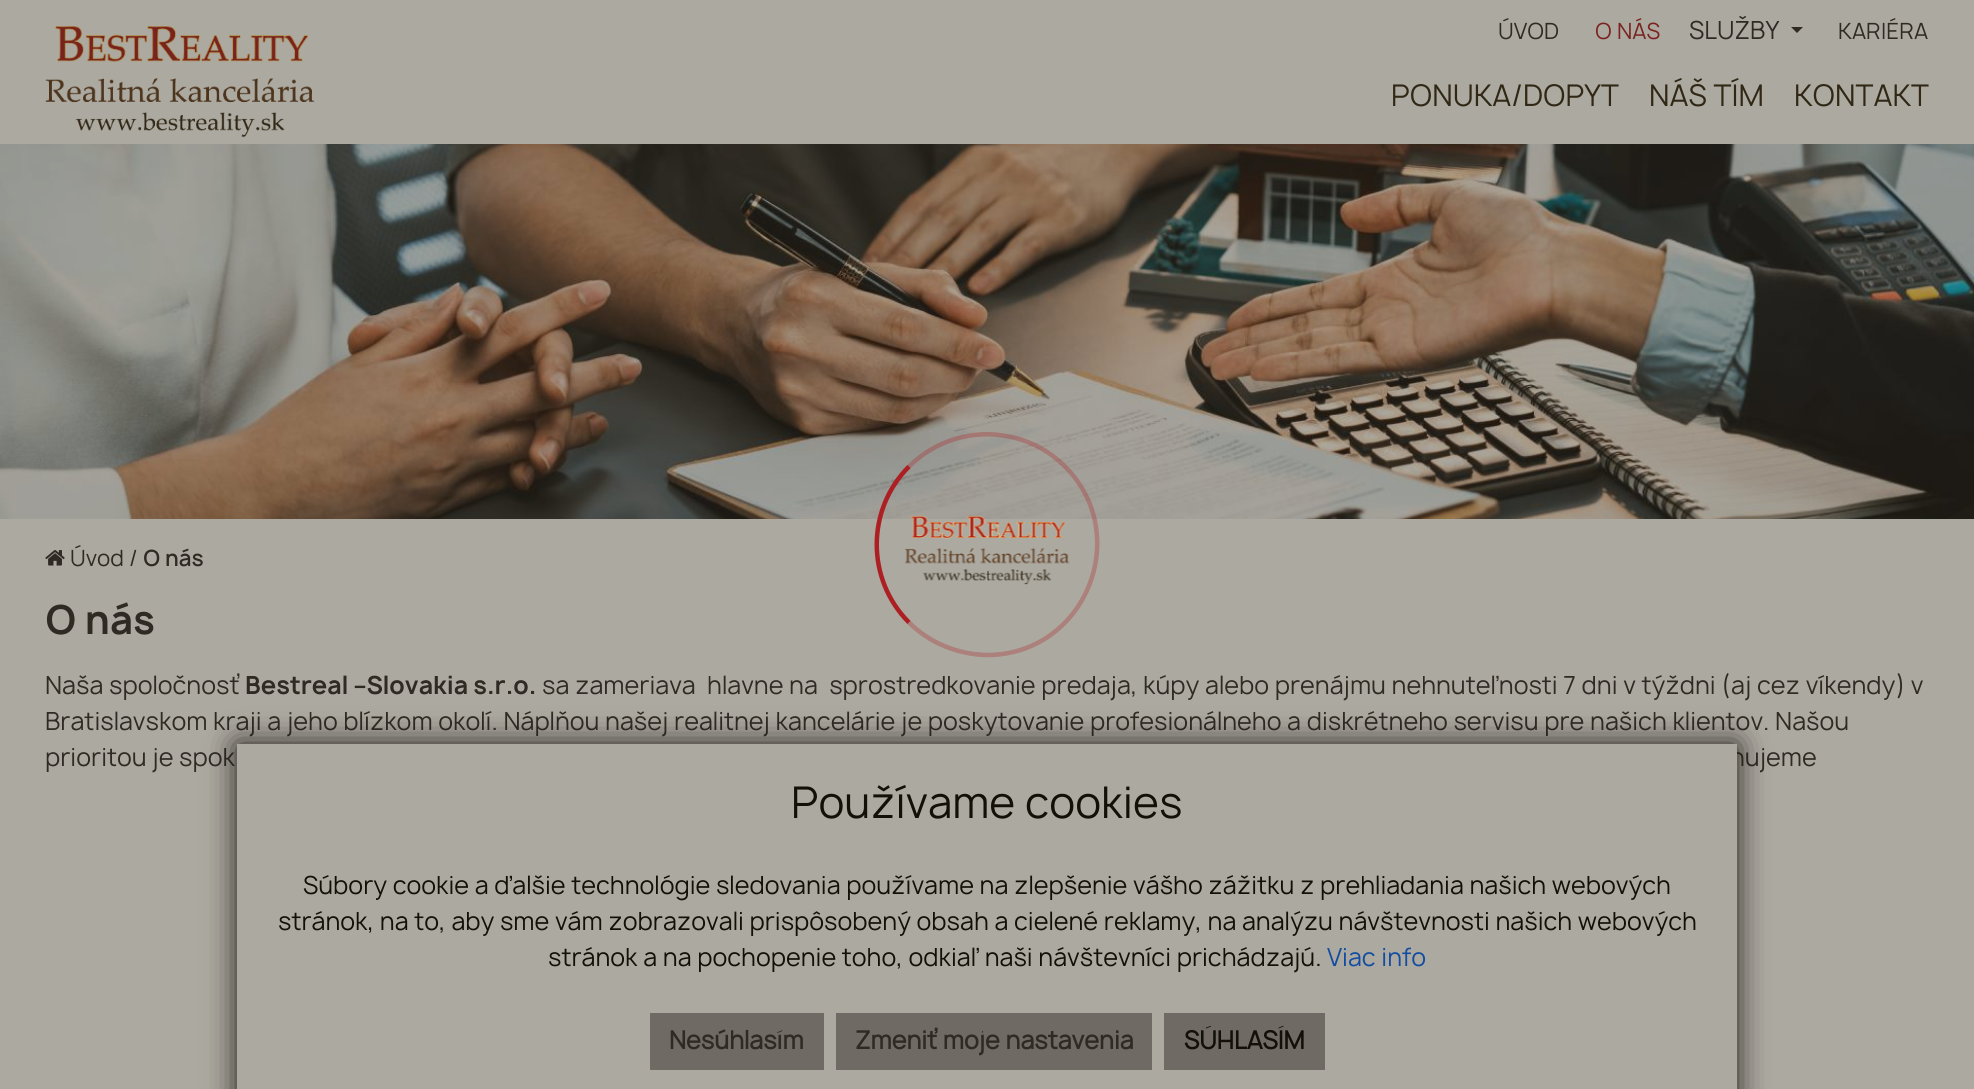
import math
import cairocffi as cairo

surface = cairo.ImageSurface(cairo.FORMAT_RGB24, 1974, 1089)
ctx = cairo.Context(surface)
options = cairo.FontOptions()
options.set_hint_metrics(cairo.HINT_METRICS_OFF)
options.set_hint_style(cairo.HINT_STYLE_NONE)
ctx.set_font_options(options)
ctx.set_miter_limit(4)


def rgb(r, g, b):
    ctx.set_source_rgb(r / 255, g / 255, b / 255)


def face(family, size, italic, bold):
    ctx.select_font_face(family, cairo.FONT_SLANT_ITALIC if italic else cairo.FONT_SLANT_NORMAL, cairo.FONT_WEIGHT_BOLD if bold else cairo.FONT_WEIGHT_NORMAL)
    ctx.set_font_size(size)


def label(x, y, s):
    ctx.move_to(x, y)
    ctx.show_text(s)


def rect(x, y, w, h):
    ctx.rectangle(x, y, w, h)
    ctx.fill()


def rrect(x, y, w, h, r):
    ctx.new_sub_path()
    for i, (u, v) in enumerate([(x + w - r, y + h - r), (x + r, y + h - r), (x + r, y + r), (x + w - r, y + r)]):
        ctx.arc(u, v, r, i * math.pi / 2, (i + 1) * math.pi / 2)
    ctx.close_path()


def soft_shadow(x, y, w, h, r, blur, alpha):
    ctx.push_group_with_content(cairo.CONTENT_ALPHA)
    ctx.set_operator(cairo.OPERATOR_SOURCE)
    for i in range(15, -16, -2):
        e = blur * i / 6
        if min(w, h) + 2 * e > 0:
            ctx.set_source_rgba(0, 0, 0, alpha * math.erfc((i - 1) / 8.5) / 2)
            rrect(x - e, y - e, w + 2 * e, h + 2 * e, max(0, min(r + e + blur * .6, min(w, h) / 2 + e)))
            ctx.fill()
    ctx.mask(ctx.pop_group())


def image(path, x, y, w, h):
    ctx.save()
    ctx.set_source_surface(cairo.ImageSurface.create_from_png(path), x, y)
    ctx.rectangle(x, y, w, h)
    ctx.fill()
    ctx.restore()


rgb(172, 169, 161)
ctx.paint()
image('image0.png', 45, 25, 270, 113)
face('Manrope', 21.5, 0, 0)
rgb(47, 43, 36)
label(1498, 39, 'ÚVOD')
rgb(122, 34, 29)
label(1595, 39, 'O NÁS')
face('Manrope', 24, 0, 0)
rgb(47, 43, 36)
label(1689, 39, 'SLUŽBY')
ctx.new_path()
ctx.move_to(1791, 27)
ctx.line_to(1803, 27)
ctx.line_to(1797, 33)
ctx.close_path()
ctx.fill()
face('Manrope', 21.5, 0, 0)
label(1838, 39, 'KARIÉRA')
face('Manrope', 28.75, 0, 0)
rgb(48, 39, 21)
label(1391, 106, 'PONUKA/DOPYT')
label(1649, 106, 'NÁŠ TÍM')
label(1794, 106, 'KONTAKT')
image('image1.png', 0, 144, 1974, 375)
image('image2.png', 45, 550, 20, 16)
face('Manrope', 21.5, 0, 0)
rgb(47, 43, 36)
label(70, 566, 'Úvod /')
face('Manrope SemiBold', 21.5, 0, 0)
label(143, 566, 'O nás')
face('Manrope', 38.5, 0, 1)
label(45, 634, 'O nás')
face('Manrope', 24, 0, 0)
label(45, 694, 'Naša spoločnosť')
face('Manrope', 24, 0, 1)
label(245, 694, 'Bestreal –Slovakia s.r.o.')
face('Manrope', 24, 0, 0)
label(542, 694, 'sa zameriava  hlavne na  sprostredkovanie predaja, kúpy alebo prenájmu nehnuteľnosti 7 dni v týždni (aj cez víkendy) v')
label(45, 730, 'Bratislavskom kraji a jeho blízkom okolí. Náplňou našej realitnej kancelárie je poskytovanie profesionálneho a diskrétneho servisu pre našich klientov. Našou')
label(45, 766, 'prioritou je spok')
label(1730, 766, 'nujeme')
ctx.new_path()
ctx.move_to(909, 466.5)
ctx.curve_to(935, 440.5, 973, 429, 1008.5, 436.5)
ctx.curve_to(1030, 440.5, 1049.5, 451, 1065, 466.5)
ctx.curve_to(1134, 535.5, 1085, 655, 987, 655)
ctx.curve_to(958, 654.5, 929.5, 643, 909, 622.5)
ctx.set_source_rgba(0.675, 0.122, 0.133, 0.3)
ctx.set_line_width(4.5)
ctx.stroke()
ctx.new_path()
ctx.move_to(909, 622.5)
ctx.curve_to(866, 579.5, 866, 509.5, 909, 466.5)
rgb(172, 31, 34)
ctx.stroke()
image('image3.png', 905, 516, 165, 69)
rgb(29, 26, 19)
soft_shadow(237, 744, 1500, 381, 0, 15, 1)
rgb(172, 169, 161)
rect(237, 744, 1500, 345)
face('Manrope', 42, 0, 0)
rgb(19, 16, 8)
label(791, 818, 'Používame cookies')
face('Manrope', 24, 0, 0)
label(303, 894, 'Súbory cookie a ďalšie technológie sledovania používame na zlepšenie vášho zážitku z prehliadania našich webových')
label(278, 930, 'stránok, na to, aby sme vám zobrazovali prispôsobený obsah a cielené reklamy, na analýzu návštevnosti našich webových')
label(548, 966, 'stránok a na pochopenie toho, odkiaľ naši návštevníci prichádzajú.')
rgb(19, 77, 161)
label(1327, 966, 'Viac info')
rgb(111, 107, 100)
rect(650, 1013, 174, 57)
face('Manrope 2', 24, 0, 1)
rgb(47, 43, 36)
label(669, 1049, 'Nesúhlasím')
rgb(111, 107, 100)
rect(836, 1013, 316, 57)
rgb(47, 43, 36)
label(855, 1049, 'Zmeniť moje nastavenia')
rgb(111, 107, 100)
rect(1164, 1013, 161, 57)
rgb(19, 16, 8)
label(1184, 1049, 'SÚHLASÍM')
surface.write_to_png('render.png')
